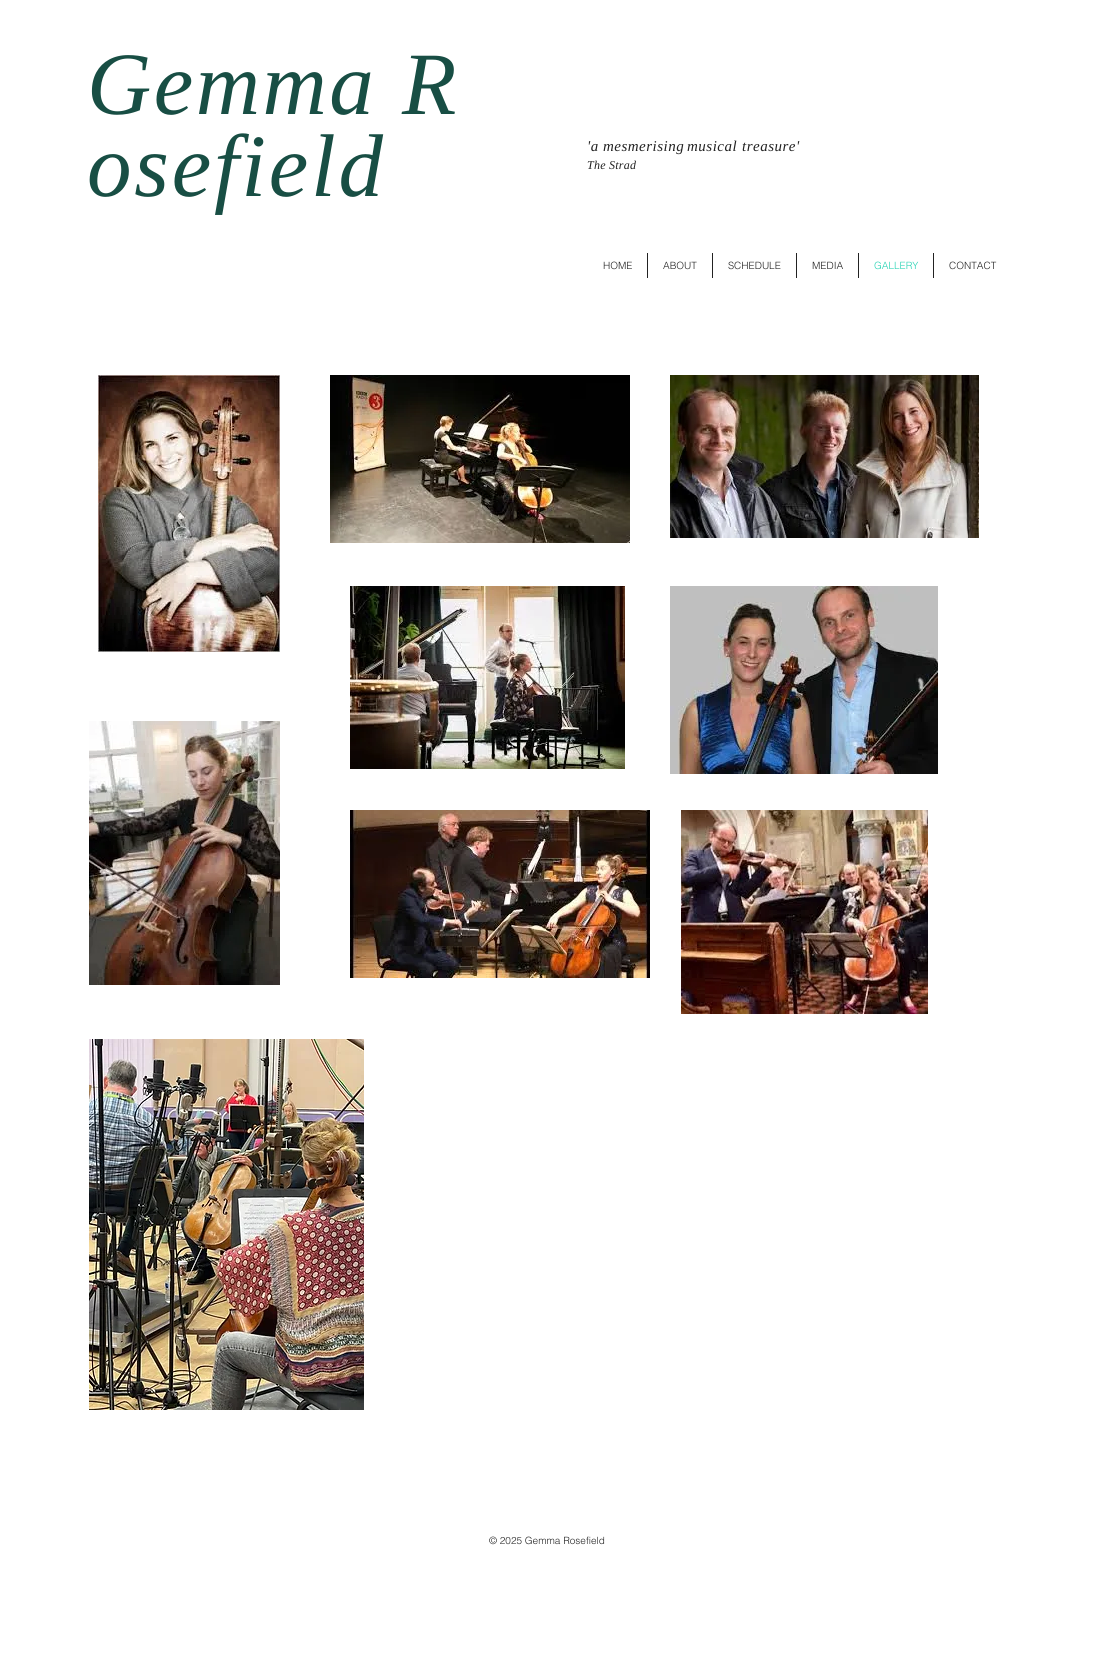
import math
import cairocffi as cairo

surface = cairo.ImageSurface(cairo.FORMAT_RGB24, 1093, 1664)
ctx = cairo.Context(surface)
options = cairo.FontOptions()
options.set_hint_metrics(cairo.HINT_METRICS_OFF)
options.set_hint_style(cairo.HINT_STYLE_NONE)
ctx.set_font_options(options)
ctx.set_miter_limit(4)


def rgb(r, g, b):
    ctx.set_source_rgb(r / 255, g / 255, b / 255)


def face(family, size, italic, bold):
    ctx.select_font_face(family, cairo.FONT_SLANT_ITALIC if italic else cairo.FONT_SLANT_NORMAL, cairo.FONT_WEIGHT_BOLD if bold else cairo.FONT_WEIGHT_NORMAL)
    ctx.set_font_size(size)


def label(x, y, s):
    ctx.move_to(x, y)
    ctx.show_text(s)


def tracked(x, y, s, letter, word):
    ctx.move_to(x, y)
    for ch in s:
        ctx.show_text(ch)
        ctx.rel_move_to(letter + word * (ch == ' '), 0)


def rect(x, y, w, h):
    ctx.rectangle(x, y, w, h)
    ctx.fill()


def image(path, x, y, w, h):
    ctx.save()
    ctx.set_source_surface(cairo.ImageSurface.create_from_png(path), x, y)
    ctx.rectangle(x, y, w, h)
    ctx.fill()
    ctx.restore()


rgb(255, 255, 255)
ctx.paint()
face('Liberation Serif', 89, 1, 0)
rgb(24, 78, 68)
tracked(87, 114, 'Gemma', 2.5, 0)
tracked(402, 114, 'R', 2.75, 0)
tracked(87, 196, 'osefield', 2.75, 0)
face('Liberation Serif', 15, 1, 0)
rgb(34, 34, 34)
tracked(587, 151, '\'a mesmerising', 0.5, 0)
tracked(687, 151, 'musical', 0.5, 0)
tracked(742, 151, 'treasure\'', 0.5, 0)
face('Liberation Serif', 12, 1, 0)
tracked(587, 169, 'The Strad', 0.25, 0)
face('helvetica Light', 10, 0, 0)
label(603, 269, 'HOME')
rect(647, 253, 1, 25)
label(663, 269, 'ABOUT')
rect(712, 253, 1, 25)
label(728, 269, 'SCHEDULE')
rect(796, 253, 1, 25)
label(812, 269, 'MEDIA')
rect(858, 253, 1, 25)
rgb(39, 211, 180)
label(874, 269, 'GALLERY')
rgb(34, 34, 34)
rect(933, 253, 1, 25)
label(949, 269, 'CONTACT')
image('image0.png', 98, 375, 182, 277)
image('image1.png', 330, 375, 300, 168)
image('image2.png', 670, 375, 309, 163)
image('image3.png', 350, 586, 275, 183)
image('image4.png', 670, 586, 268, 188)
image('image5.png', 89, 721, 191, 264)
image('image6.png', 350, 810, 300, 168)
image('image7.png', 681, 810, 247, 204)
image('image8.png', 89, 1039, 275, 371)
label(489, 1544, '© 2025 Gemma Rosefield')
surface.write_to_png('render.png')
